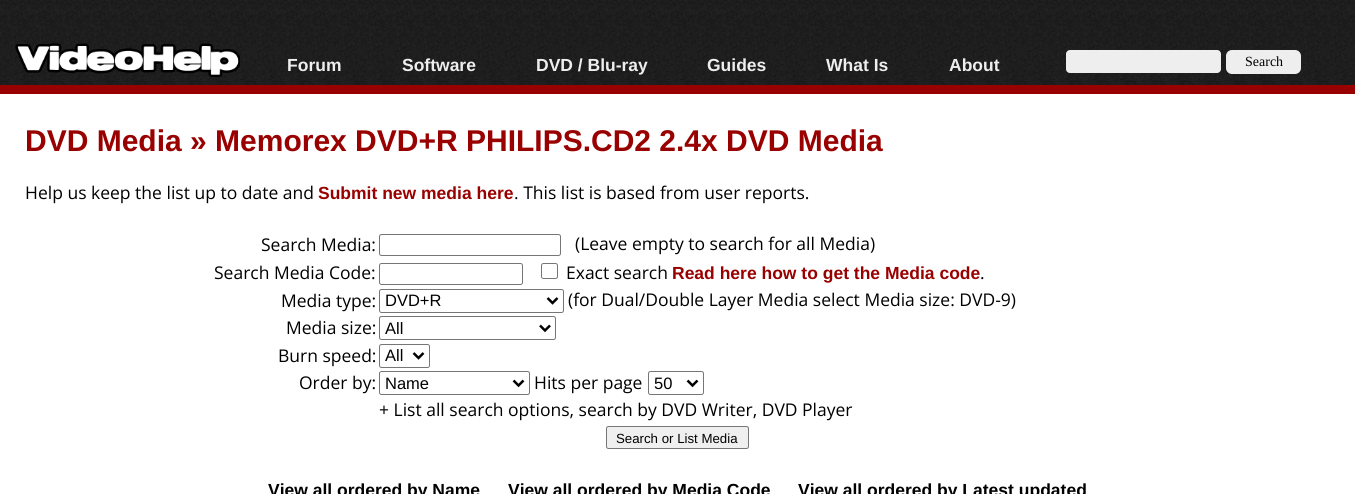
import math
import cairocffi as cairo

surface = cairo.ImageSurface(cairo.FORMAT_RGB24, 1355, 494)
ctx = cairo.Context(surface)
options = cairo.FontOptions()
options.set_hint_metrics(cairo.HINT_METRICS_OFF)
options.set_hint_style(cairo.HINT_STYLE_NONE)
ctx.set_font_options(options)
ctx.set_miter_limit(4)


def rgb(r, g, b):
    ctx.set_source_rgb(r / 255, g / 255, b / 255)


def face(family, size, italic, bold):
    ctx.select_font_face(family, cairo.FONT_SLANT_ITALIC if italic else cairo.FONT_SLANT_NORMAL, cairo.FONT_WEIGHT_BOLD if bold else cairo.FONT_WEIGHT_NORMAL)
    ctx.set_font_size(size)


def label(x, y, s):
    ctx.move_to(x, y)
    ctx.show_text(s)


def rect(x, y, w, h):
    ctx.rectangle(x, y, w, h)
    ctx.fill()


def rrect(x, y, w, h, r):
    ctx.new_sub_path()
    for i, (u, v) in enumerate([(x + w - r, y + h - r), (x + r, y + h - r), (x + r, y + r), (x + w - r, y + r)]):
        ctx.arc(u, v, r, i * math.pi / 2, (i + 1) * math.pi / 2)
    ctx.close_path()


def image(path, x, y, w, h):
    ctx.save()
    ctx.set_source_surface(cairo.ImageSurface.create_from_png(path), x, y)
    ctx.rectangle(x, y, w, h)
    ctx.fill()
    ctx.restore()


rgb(34, 34, 34)
ctx.paint()
image('image0.png', 0, 0, 1355, 85)
rgb(153, 0, 0)
rect(0, 85, 1355, 9)
image('image1.png', 15, 43, 225, 34)
face('Liberation Sans', 17.5, 0, 1)
rgb(238, 238, 238)
label(287, 71, 'Forum')
label(402, 71, 'Software')
label(536, 71, 'DVD / Blu-ray')
label(707, 71, 'Guides')
label(826, 71, 'What Is')
label(949, 71, 'About')
rrect(1066, 50, 155, 23, 4)
ctx.fill()
rrect(1226, 50, 75, 24, 6)
ctx.fill()
face('Liberation Serif', 14, 0, 0)
rgb(0, 0, 0)
label(1245, 66, 'Search')
rgb(255, 255, 255)
rect(0, 94, 1355, 400)
face('Liberation Sans', 30, 0, 1)
rgb(153, 0, 0)
label(25, 151, 'DVD Media » Memorex DVD+R PHILIPS.CD2 2.4x DVD Media')
face('Open Sans', 17.5, 0, 0)
rgb(0, 0, 0)
label(25, 199, 'Help us keep the list up to date and')
face('Liberation Sans', 17.5, 0, 1)
rgb(153, 0, 0)
label(318, 199, 'Submit new media here')
face('Open Sans', 17.5, 0, 0)
rgb(0, 0, 0)
label(514, 199, '. This list is based from user reports.')
label(261, 251, 'Search Media:')
rrect(379.5, 234.5, 181, 21, 2)
rgb(118, 118, 118)
ctx.set_line_width(1)
ctx.stroke()
rgb(0, 0, 0)
label(575, 250, '(Leave empty to search for all Media)')
label(214, 279, 'Search Media Code:')
rrect(379.5, 263.5, 143, 21, 2)
rgb(118, 118, 118)
ctx.stroke()
rrect(541.5, 263.5, 16, 15, 2)
ctx.stroke()
rgb(0, 0, 0)
label(566, 279, 'Exact search')
face('Liberation Sans', 17.5, 0, 1)
rgb(153, 0, 0)
label(672, 279, 'Read here how to get the Media code')
face('Open Sans', 17.5, 0, 0)
rgb(0, 0, 0)
label(980, 279, '.')
label(281, 307, 'Media type:')
rrect(379.5, 289.5, 184, 23, 2)
rgb(118, 118, 118)
ctx.stroke()
ctx.new_path()
ctx.move_to(547.5, 298)
ctx.line_to(552.5, 303)
ctx.line_to(557.5, 298)
rgb(0, 0, 0)
ctx.set_line_width(2.5)
ctx.stroke()
face('Liberation Sans', 16.5, 0, 0)
label(385, 306, 'DVD+R')
face('Open Sans', 17.5, 0, 0)
label(568, 306, '(for Dual/Double Layer Media select Media size: DVD-9)')
label(286, 334, 'Media size:')
rrect(379.5, 316.5, 176, 23, 2)
rgb(118, 118, 118)
ctx.set_line_width(1)
ctx.stroke()
ctx.new_path()
ctx.move_to(540, 325.5)
ctx.line_to(545, 330.5)
ctx.line_to(550, 325.5)
rgb(0, 0, 0)
ctx.set_line_width(2.5)
ctx.stroke()
face('Liberation Sans', 16.5, 0, 0)
label(385, 334, 'All')
face('Open Sans', 17.5, 0, 0)
label(278, 362, 'Burn speed:')
rrect(379.5, 344.5, 50, 23, 2)
rgb(118, 118, 118)
ctx.set_line_width(1)
ctx.stroke()
ctx.new_path()
ctx.move_to(413.5, 353)
ctx.line_to(418.5, 358)
ctx.line_to(423.5, 353)
rgb(0, 0, 0)
ctx.set_line_width(2.5)
ctx.stroke()
face('Liberation Sans', 16.5, 0, 0)
label(385, 361, 'All')
face('Open Sans', 17.5, 0, 0)
label(299, 389, 'Order by:')
rrect(379.5, 371.5, 150, 23, 2)
rgb(118, 118, 118)
ctx.set_line_width(1)
ctx.stroke()
ctx.new_path()
ctx.move_to(513.5, 380.5)
ctx.line_to(518.5, 385.5)
ctx.line_to(523.5, 380.5)
rgb(0, 0, 0)
ctx.set_line_width(2.5)
ctx.stroke()
face('Liberation Sans', 16.5, 0, 0)
label(385, 389, 'Name')
face('Open Sans', 17.5, 0, 0)
label(534, 389, 'Hits per page')
rrect(648.5, 371.5, 55, 23, 2)
rgb(118, 118, 118)
ctx.set_line_width(1)
ctx.stroke()
ctx.new_path()
ctx.move_to(687.5, 380.5)
ctx.line_to(692.5, 385.5)
ctx.line_to(697.5, 380.5)
rgb(0, 0, 0)
ctx.set_line_width(2.5)
ctx.stroke()
face('Liberation Sans', 16.5, 0, 0)
label(654, 389, '50')
face('Open Sans', 17.5, 0, 0)
label(379, 416, '+ List all search options, search by DVD Writer, DVD Player')
rgb(239, 239, 239)
rrect(606.5, 426.5, 142, 22, 2)
ctx.fill_preserve()
rgb(118, 118, 118)
ctx.set_line_width(1)
ctx.stroke()
face('Liberation Sans', 13.25, 0, 0)
rgb(0, 0, 0)
label(616, 443, 'Search or List Media')
face('Liberation Sans', 17.5, 0, 1)
label(268, 496, 'View all ordered by Name')
label(508, 496, 'View all ordered by Media Code')
label(798, 496, 'View all ordered by Latest updated')
surface.write_to_png('render.png')
